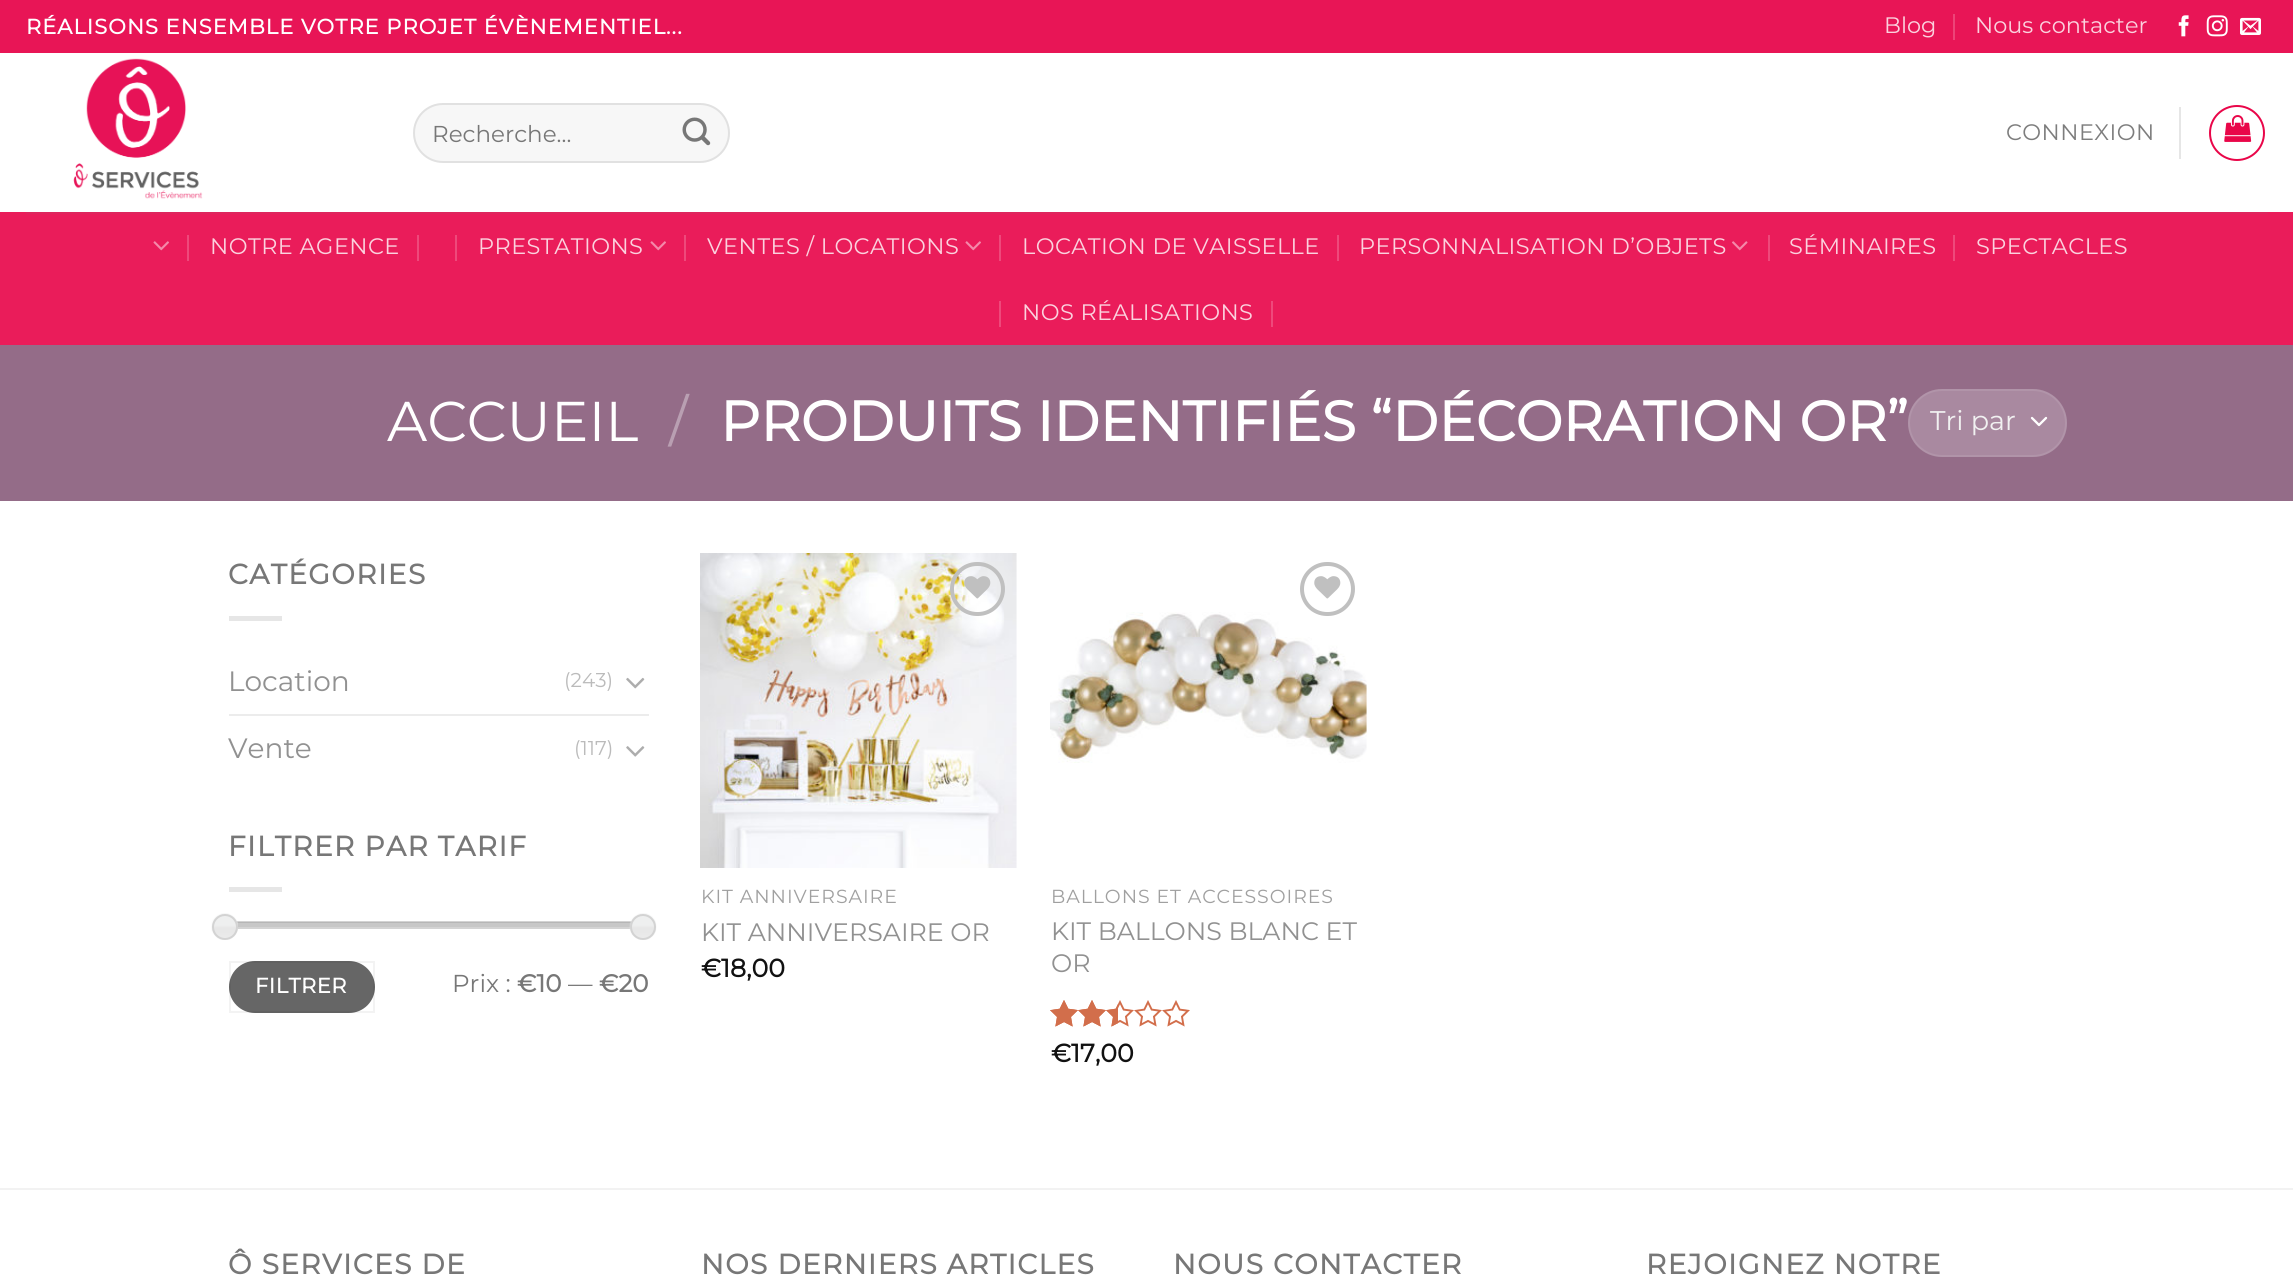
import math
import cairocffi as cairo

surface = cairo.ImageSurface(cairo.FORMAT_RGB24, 2293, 1277)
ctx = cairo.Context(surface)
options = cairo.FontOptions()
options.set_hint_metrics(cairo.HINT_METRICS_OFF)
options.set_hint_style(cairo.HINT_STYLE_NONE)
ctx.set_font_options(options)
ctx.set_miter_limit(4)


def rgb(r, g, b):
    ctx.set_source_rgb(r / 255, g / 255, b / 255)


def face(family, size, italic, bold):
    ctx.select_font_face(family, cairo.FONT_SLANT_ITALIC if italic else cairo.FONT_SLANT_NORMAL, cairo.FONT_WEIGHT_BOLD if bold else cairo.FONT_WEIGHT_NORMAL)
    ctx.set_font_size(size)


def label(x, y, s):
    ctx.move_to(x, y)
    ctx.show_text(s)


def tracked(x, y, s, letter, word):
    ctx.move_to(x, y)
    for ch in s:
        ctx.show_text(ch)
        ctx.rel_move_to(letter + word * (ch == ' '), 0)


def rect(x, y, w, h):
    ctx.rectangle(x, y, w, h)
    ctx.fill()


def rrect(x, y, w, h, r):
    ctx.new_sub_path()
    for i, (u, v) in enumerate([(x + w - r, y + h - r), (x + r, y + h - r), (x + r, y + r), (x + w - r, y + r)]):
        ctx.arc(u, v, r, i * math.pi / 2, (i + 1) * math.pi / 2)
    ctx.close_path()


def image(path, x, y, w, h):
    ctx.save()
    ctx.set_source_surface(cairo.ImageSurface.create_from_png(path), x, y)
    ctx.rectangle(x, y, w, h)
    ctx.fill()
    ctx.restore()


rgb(255, 255, 255)
ctx.paint()
rgb(232, 21, 86)
rect(0, 0, 2293, 53)
face('Montserrat', 21, 0, 1)
rgb(255, 255, 255)
tracked(26, 34, 'RÉALISONS ENSEMBLE VOTRE PROJET ÉVÈNEMENTIEL...', 1.05, 0)
face('Montserrat Thin', 22.4, 0, 0)
rgb(251, 210, 222)
label(1884, 33, 'Blog')
rgb(237, 68, 120)
rect(1953, 14, 2, 26)
rgb(251, 210, 222)
label(1975, 33, 'Nous contacter')
image('image0.png', 2178, 15, 11, 22)
image('image1.png', 2206, 15, 22, 22)
image('image2.png', 2240, 17, 21, 18)
image('image3.png', 73, 58, 130, 141)
rgb(247, 247, 247)
rrect(413, 103, 317, 60, 30)
ctx.fill()
rrect(414, 104, 315, 58, 29)
ctx.set_source_rgba(0, 0, 0, 0.09)
ctx.stroke()
face('Montserrat Thin', 23, 0, 0)
rgb(119, 119, 119)
label(432, 142, 'Recherche…')
image('image4.png', 682, 117, 29, 29)
face('Montserrat Thin', 22.4, 0, 0)
rgb(125, 125, 125)
tracked(2006, 140, 'CONNEXION', 0.45, 0)
rgb(230, 230, 230)
rect(2179, 107, 2, 52)
ctx.new_path()
ctx.arc(2237, 133, 27, 0, 2 * math.pi)
rgb(233, 6, 73)
ctx.stroke()
image('image5.png', 2224, 115, 28, 27)
rgb(234, 28, 90)
rect(0, 212, 2293, 133)
rgb(222, 37, 93)
rect(26, 212, 2242, 2)
image('image6.png', 153, 241, 16, 10)
rgb(238, 73, 123)
rect(187, 235, 2, 26)
rgb(251, 210, 222)
tracked(210, 254, 'NOTRE AGENCE', 0.45, 0)
rgb(238, 73, 123)
rect(417, 235, 2, 26)
rect(455, 235, 2, 26)
rgb(251, 210, 222)
tracked(478, 254, 'PRESTATIONS', 0.45, 0)
image('image6.png', 650, 241, 16, 10)
rgb(238, 73, 123)
rect(684, 235, 2, 26)
rgb(251, 210, 222)
tracked(707, 254, 'VENTES / LOCATIONS', 0.45, 0)
image('image6.png', 965, 241, 16, 10)
rgb(238, 73, 123)
rect(999, 235, 2, 26)
rgb(251, 210, 222)
tracked(1022, 254, 'LOCATION DE VAISSELLE', 0.45, 0)
rgb(238, 73, 123)
rect(1337, 235, 2, 26)
rgb(251, 210, 222)
tracked(1359, 254, 'PERSONNALISATION D’OBJETS', 0.45, 0)
image('image7.png', 1732, 241, 16, 10)
rgb(238, 73, 123)
rect(1768, 235, 2, 26)
rgb(251, 210, 222)
tracked(1789, 254, 'SÉMINAIRES', 0.45, 0)
rgb(238, 73, 123)
rect(1953, 235, 2, 26)
rgb(251, 210, 222)
tracked(1976, 254, 'SPECTACLES', 0.45, 0)
rgb(238, 73, 123)
rect(999, 301, 2, 26)
rgb(251, 210, 222)
tracked(1022, 320, 'NOS RÉALISATIONS', 0.45, 0)
rgb(238, 73, 123)
rect(1271, 301, 2, 26)
rgb(148, 108, 136)
rect(0, 345, 2293, 156)
face('Montserrat Thin', 56, 0, 0)
rgb(255, 255, 255)
label(387, 441, 'ACCUEIL')
rgb(185, 159, 178)
label(669, 441, '/')
face('Montserrat', 56, 0, 1)
rgb(255, 255, 255)
label(720, 441, 'PRODUITS IDENTIFIÉS “DÉCORATION OR”')
rgb(169, 137, 160)
rrect(1908, 389, 159, 68, 34)
ctx.fill()
ctx.new_path()
ctx.move_to(2032, 418)
ctx.line_to(2039, 425)
ctx.line_to(2046, 418)
rgb(255, 255, 255)
ctx.set_line_width(2.3)
ctx.set_line_cap(cairo.LINE_CAP_ROUND)
ctx.set_line_join(cairo.LINE_JOIN_ROUND)
ctx.stroke()
rrect(1909, 390, 157, 66, 33)
ctx.set_source_rgba(1, 1, 1, 0.09)
ctx.set_line_width(2)
ctx.set_line_cap(cairo.LINE_CAP_BUTT)
ctx.set_line_join(cairo.LINE_JOIN_MITER)
ctx.stroke()
face('Montserrat Thin', 27, 0, 0)
rgb(241, 241, 241)
label(1930, 430, 'Tri par')
face('Montserrat', 28, 0, 1)
rgb(119, 119, 119)
tracked(228, 584, 'CATÉGORIES', 1.4, 0)
rgb(230, 230, 230)
rect(229, 616, 53, 5)
face('Montserrat Thin', 28, 0, 0)
rgb(145, 145, 145)
label(228, 691, 'Location')
face('Montserrat Thin', 20, 0, 0)
rgb(187, 187, 187)
label(564, 687, '(243)')
image('image8.png', 626, 677, 19, 12)
rgb(236, 236, 236)
rect(229, 714, 420, 2)
face('Montserrat Thin', 28, 0, 0)
rgb(145, 145, 145)
label(228, 758, 'Vente')
face('Montserrat Thin', 20, 0, 0)
rgb(187, 187, 187)
label(574, 755, '(117)')
image('image9.png', 626, 746, 19, 11)
face('Montserrat', 28, 0, 1)
rgb(119, 119, 119)
tracked(228, 856, 'FILTRER PAR TARIF', 1.4, 0)
rgb(230, 230, 230)
rect(229, 887, 53, 5)
rgb(241, 241, 241)
rect(229, 923, 402, 4)
ctx.rectangle(230, 922, 418, 6)
rgb(211, 211, 211)
ctx.stroke()
ctx.set_source_rgba(0.4, 0.4, 0.4, 0.5)
rect(231, 922, 400, 5)
image('image11.png', 237, 922, 394, 5)
image('image10.png', 211, 913, 27, 27)
ctx.arc(225, 927, 12, 0, 2 * math.pi)
rgb(211, 211, 211)
ctx.stroke()
image('image12.png', 629, 913, 28, 27)
ctx.arc(643, 927, 12, 0, 2 * math.pi)
ctx.stroke()
rgb(102, 102, 102)
rrect(229, 961, 146, 52, 26)
ctx.fill()
ctx.rectangle(230, 962, 144, 50)
ctx.set_source_rgba(0, 0, 0, 0.05)
ctx.stroke()
face('Montserrat', 21, 0, 1)
rgb(255, 255, 255)
tracked(255, 993, 'FILTRER', 0.5, 0)
face('Montserrat Thin', 24.5, 0, 0)
rgb(119, 119, 119)
label(452, 992, 'Prix :')
face('Montserrat', 24.5, 0, 1)
label(517, 992, '€10')
face('Montserrat Thin', 24.5, 0, 0)
label(568, 992, '—')
face('Montserrat', 24.5, 0, 1)
label(599, 992, '€20')
image('image13.png', 700, 553, 317, 315)
rrect(952, 564, 51, 50, 25)
rgb(192, 192, 192)
ctx.set_line_width(4)
ctx.stroke()
image('image14.png', 964, 576, 27, 23)
face('Montserrat Thin', 18.9, 0, 0)
rgb(160, 160, 160)
tracked(701, 903, 'KIT ANNIVERSAIRE', 0.95, 0)
face('Montserrat Thin', 25.25, 0, 0)
rgb(145, 145, 145)
label(701, 941, 'KIT ANNIVERSAIRE OR')
face('Montserrat', 25.25, 0, 1)
rgb(17, 17, 17)
label(701, 977, '€18,00')
image('image16.png', 1050, 612, 317, 151)
rrect(1302, 564, 51, 50, 25)
rgb(192, 192, 192)
ctx.stroke()
image('image15.png', 1314, 576, 27, 23)
face('Montserrat Thin', 18.9, 0, 0)
rgb(160, 160, 160)
tracked(1051, 903, 'BALLONS ET ACCESSOIRES', 0.95, 0)
face('Montserrat Thin', 25.25, 0, 0)
rgb(145, 145, 145)
label(1051, 940, 'KIT BALLONS BLANC ET')
label(1051, 972, 'OR')
image('image17.png', 1050, 1000, 140, 27)
image('image18.png', 1050, 1000, 68, 27)
face('Montserrat', 25.25, 0, 1)
rgb(17, 17, 17)
label(1051, 1062, '€17,00')
rgb(242, 242, 242)
rect(0, 1188, 2293, 2)
face('Montserrat', 28, 0, 1)
rgb(119, 119, 119)
tracked(228, 1274, 'Ô SERVICES DE', 1.4, 0)
tracked(701, 1274, 'NOS DERNIERS ARTICLES', 1.4, 0)
tracked(1173, 1274, 'NOUS CONTACTER', 1.4, 0)
tracked(1646, 1274, 'REJOIGNEZ NOTRE', 1.4, 0)
surface.write_to_png('render.png')
